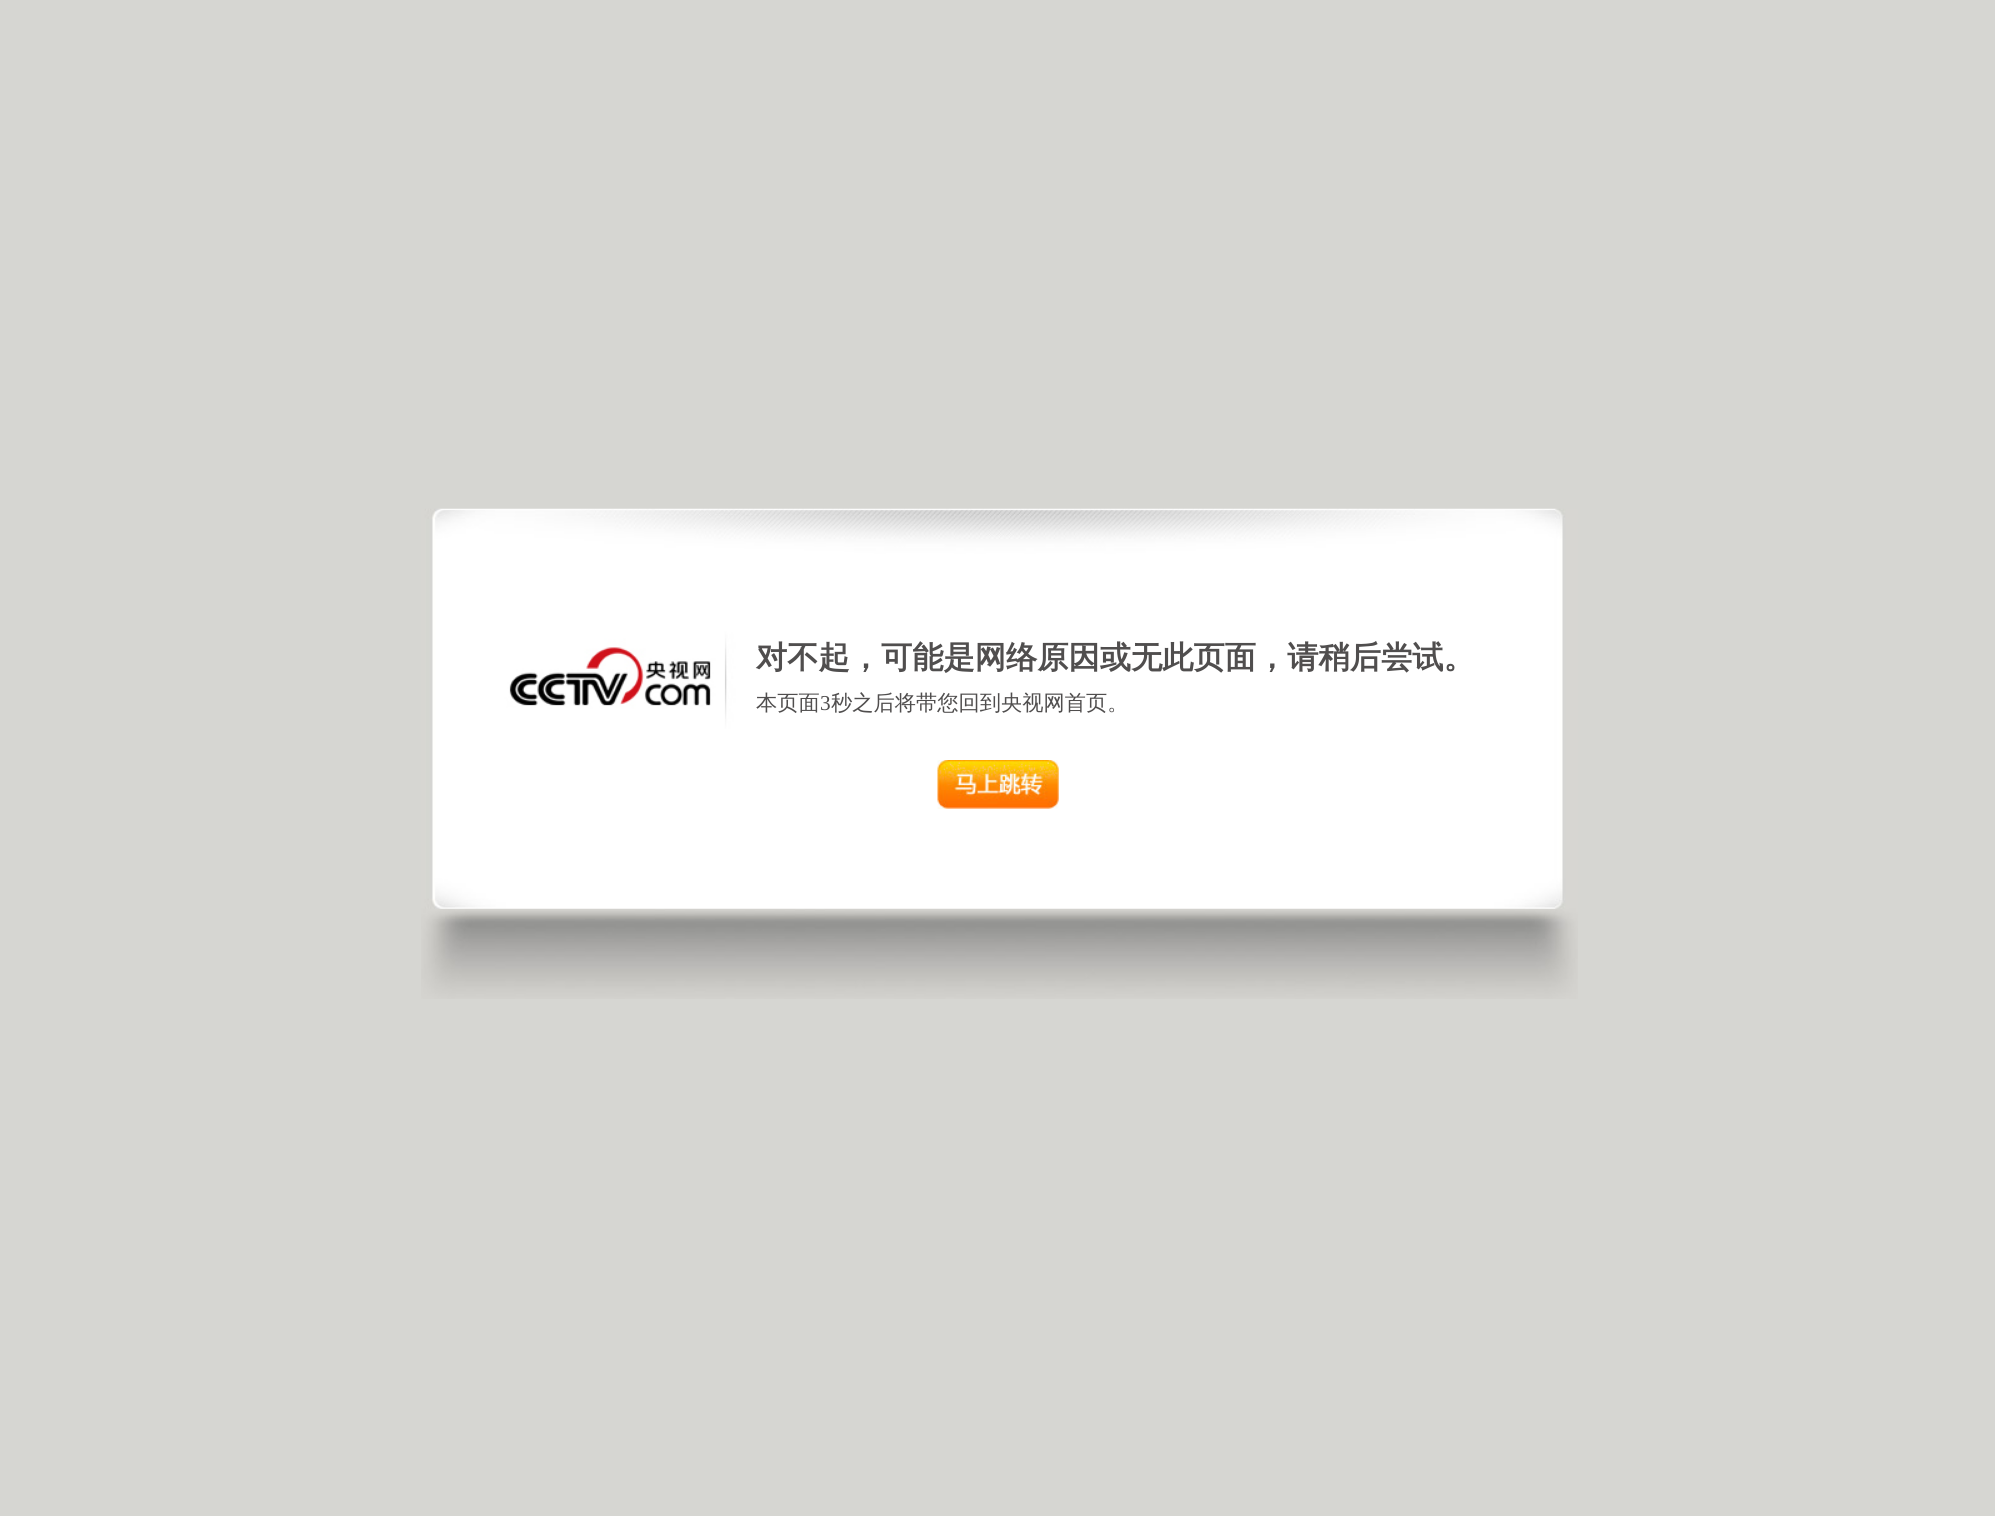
import math
import cairocffi as cairo

surface = cairo.ImageSurface(cairo.FORMAT_RGB24, 1995, 1516)
ctx = cairo.Context(surface)
options = cairo.FontOptions()
options.set_hint_metrics(cairo.HINT_METRICS_OFF)
options.set_hint_style(cairo.HINT_STYLE_NONE)
ctx.set_font_options(options)
ctx.set_miter_limit(4)


def rgb(r, g, b):
    ctx.set_source_rgb(r / 255, g / 255, b / 255)


def face(family, size, italic, bold):
    ctx.select_font_face(family, cairo.FONT_SLANT_ITALIC if italic else cairo.FONT_SLANT_NORMAL, cairo.FONT_WEIGHT_BOLD if bold else cairo.FONT_WEIGHT_NORMAL)
    ctx.set_font_size(size)


def label(x, y, s):
    ctx.move_to(x, y)
    ctx.show_text(s)


def image(path, x, y, w, h):
    ctx.save()
    ctx.set_source_surface(cairo.ImageSurface.create_from_png(path), x, y)
    ctx.rectangle(x, y, w, h)
    ctx.fill()
    ctx.restore()


rgb(214, 214, 210)
ctx.paint()
image('image0.png', 421, 508, 1157, 491)
face('WenQuanYi Zen Hei', 31.25, 0, 1)
rgb(80, 78, 78)
label(756, 668, '对不起，可能是网络原因或无此页面，请稍后尝试。')
face('WenQuanYi Zen Hei Medium', 21.25, 0, 0)
label(756, 710, '本页面')
face('Liberation Serif', 21.25, 0, 0)
label(820, 710, '3')
face('WenQuanYi Zen Hei Medium', 21.25, 0, 0)
label(831, 710, '秒之后将带您回到央视网首页。')
image('image1.png', 937, 760, 122, 49)
surface.write_to_png('render.png')
